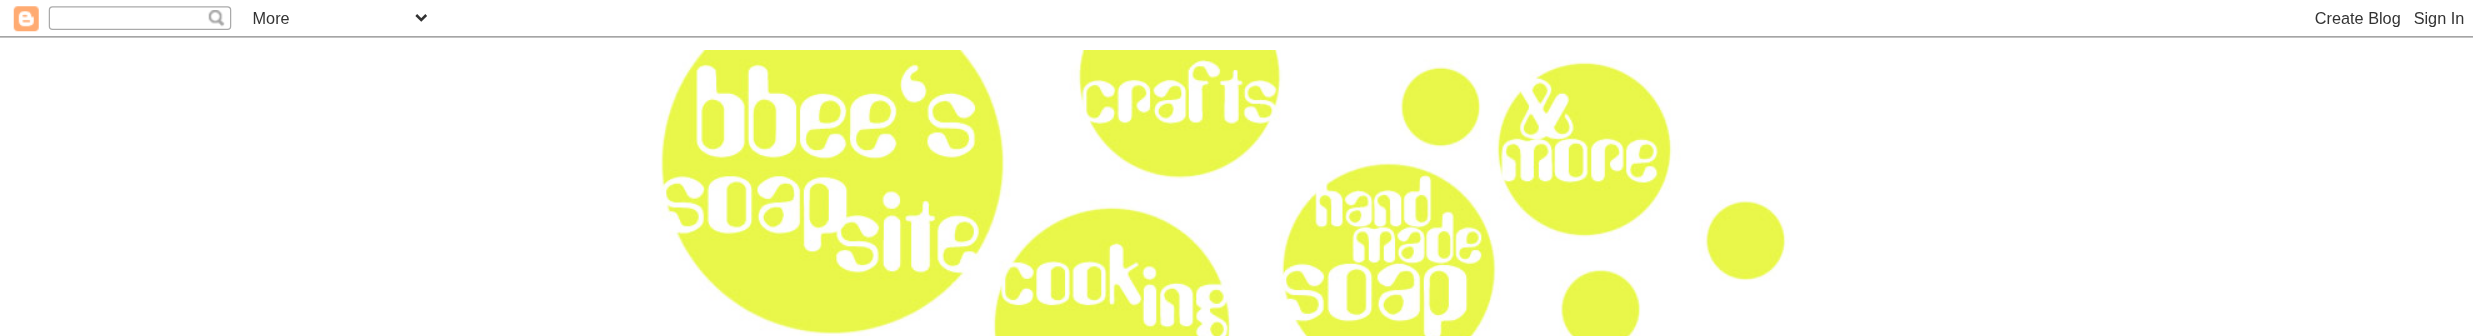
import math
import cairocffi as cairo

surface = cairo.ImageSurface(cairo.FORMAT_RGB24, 2473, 336)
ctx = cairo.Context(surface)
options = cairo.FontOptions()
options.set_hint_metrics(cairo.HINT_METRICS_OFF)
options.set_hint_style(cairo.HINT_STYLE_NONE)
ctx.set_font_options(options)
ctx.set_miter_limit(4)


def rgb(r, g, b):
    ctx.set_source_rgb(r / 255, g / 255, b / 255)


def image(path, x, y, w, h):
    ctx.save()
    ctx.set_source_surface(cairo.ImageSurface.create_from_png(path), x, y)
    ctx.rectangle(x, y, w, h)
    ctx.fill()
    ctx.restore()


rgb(255, 255, 255)
ctx.paint()
image('image0.png', 0, 6, 2473, 32)
image('image1.png', 660, 50, 1130, 286)
surface.write_to_png('render.png')
